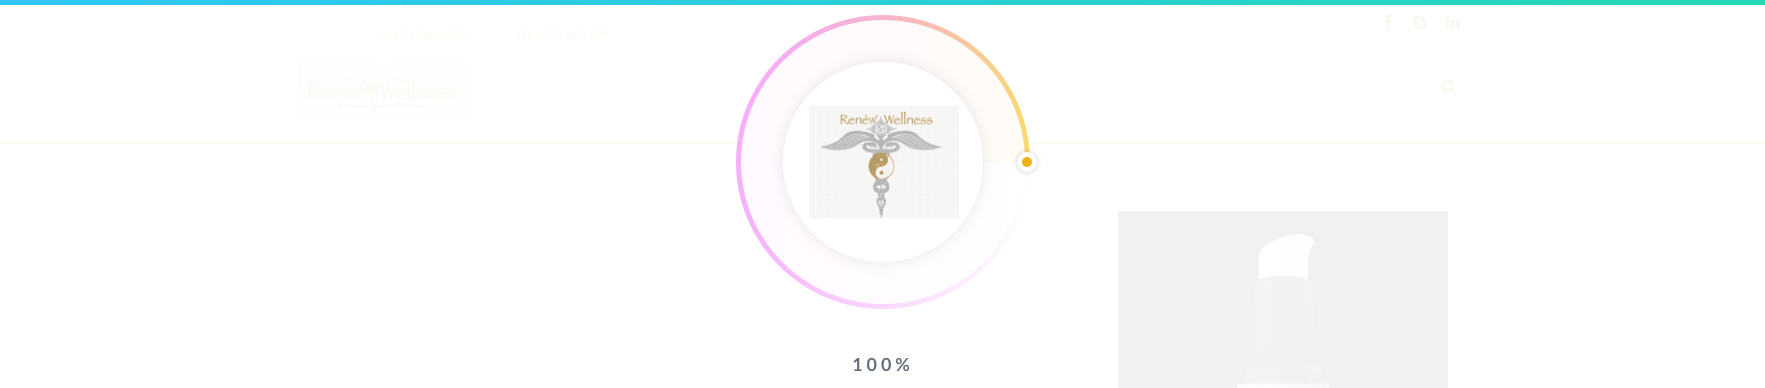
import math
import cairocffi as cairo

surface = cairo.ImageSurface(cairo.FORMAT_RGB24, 1765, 388)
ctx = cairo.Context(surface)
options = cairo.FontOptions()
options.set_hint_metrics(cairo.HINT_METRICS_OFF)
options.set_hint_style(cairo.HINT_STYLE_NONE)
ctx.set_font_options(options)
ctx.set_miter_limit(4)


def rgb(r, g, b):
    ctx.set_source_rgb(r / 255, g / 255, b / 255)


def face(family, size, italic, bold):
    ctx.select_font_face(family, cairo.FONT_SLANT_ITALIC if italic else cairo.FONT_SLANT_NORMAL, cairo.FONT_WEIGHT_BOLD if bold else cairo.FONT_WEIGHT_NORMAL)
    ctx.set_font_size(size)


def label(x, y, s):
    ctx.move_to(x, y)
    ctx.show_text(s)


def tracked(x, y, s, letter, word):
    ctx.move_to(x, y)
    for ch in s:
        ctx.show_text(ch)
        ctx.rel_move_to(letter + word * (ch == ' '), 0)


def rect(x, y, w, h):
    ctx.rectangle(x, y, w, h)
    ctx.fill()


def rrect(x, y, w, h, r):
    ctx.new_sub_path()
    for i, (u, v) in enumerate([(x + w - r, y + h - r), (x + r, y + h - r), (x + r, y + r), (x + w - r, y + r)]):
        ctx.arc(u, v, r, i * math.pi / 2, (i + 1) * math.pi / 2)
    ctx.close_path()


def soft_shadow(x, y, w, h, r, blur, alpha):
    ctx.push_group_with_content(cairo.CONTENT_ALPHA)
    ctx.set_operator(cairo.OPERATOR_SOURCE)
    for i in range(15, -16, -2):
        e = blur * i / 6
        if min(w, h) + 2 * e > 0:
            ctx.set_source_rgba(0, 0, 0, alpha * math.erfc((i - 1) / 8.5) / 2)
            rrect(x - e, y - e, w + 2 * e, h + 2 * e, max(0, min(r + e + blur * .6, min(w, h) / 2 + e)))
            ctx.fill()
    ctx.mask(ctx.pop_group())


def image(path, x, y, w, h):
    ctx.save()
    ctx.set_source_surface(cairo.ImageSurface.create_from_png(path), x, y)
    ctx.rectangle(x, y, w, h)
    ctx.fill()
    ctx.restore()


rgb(255, 255, 255)
ctx.paint()
image('image0.png', 1383, 14, 9, 16)
image('image1.png', 1413, 15, 14, 15)
image('image2.png', 1446, 15, 14, 14)
face('Cinzel', 12, 1, 0)
rgb(251, 248, 237)
label(374, 39, '+1 (415) 548-0738')
label(514, 39, '+34 (931) 845-828')
image('image3.png', 298, 61, 169, 60)
image('image4.png', 1441, 79, 15, 16)
rgb(252, 249, 237)
rect(0, 143, 1765, 1)
image('image5.png', 1118, 211, 330, 177)
gradient = cairo.LinearGradient(0, 2.5, 1765, 2.5)
gradient.add_color_stop_rgba(0, 0.188, 0.776, 0.973, 1)
gradient.add_color_stop_rgba(1, 0.137, 0.843, 0.702, 1)
ctx.set_source(gradient)
rect(0, 0, 1765, 5)
gradient = cairo.LinearGradient(736, 89, 1030, 88)
gradient.add_color_stop_rgba(0, 0.929, 0.329, 1, 0.47)
gradient.add_color_stop_rgba(1, 0.976, 0.847, 0.408, 0.93)
ctx.set_source(gradient)
ctx.new_path()
ctx.move_to(883, 15)
ctx.curve_to(964, 15, 1030, 81, 1030, 162)
ctx.line_to(736, 162)
ctx.curve_to(736, 81, 802, 15, 883, 15)
ctx.close_path()
ctx.fill()
gradient = cairo.LinearGradient(736, 236, 1030, 236)
gradient.add_color_stop_rgba(0.01, 0.965, 0.686, 1, 1)
gradient.add_color_stop_rgba(1, 1, 1, 1, 1)
ctx.set_source(gradient)
ctx.new_path()
ctx.move_to(736, 162)
ctx.line_to(1030, 162)
ctx.curve_to(1030, 243, 964, 309, 883, 309)
ctx.curve_to(802, 309, 736, 243, 736, 162)
ctx.close_path()
ctx.fill()
ctx.set_source_rgba(1, 1, 1, 0.93)
ctx.arc(883, 162, 142, 0, 2 * math.pi)
ctx.fill()
rgb(17, 17, 17)
soft_shadow(1017, 152, 20, 20, 10, 2.5, 0.2)
rgb(243, 176, 19)
ctx.arc(1027, 162, 7.5, 0, 2 * math.pi)
ctx.fill_preserve()
rgb(255, 255, 255)
ctx.set_line_width(5)
ctx.stroke()
ctx.save()
ctx.set_fill_rule(cairo.FILL_RULE_EVEN_ODD)
ctx.new_path()
ctx.move_to(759, 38)
ctx.line_to(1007, 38)
ctx.line_to(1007, 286)
ctx.line_to(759, 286)
ctx.close_path()
ctx.move_to(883, 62)
ctx.curve_to(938, 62, 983, 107, 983, 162)
ctx.curve_to(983, 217, 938, 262, 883, 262)
ctx.curve_to(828, 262, 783, 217, 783, 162)
ctx.curve_to(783, 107, 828, 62, 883, 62)
ctx.close_path()
ctx.clip()
rgb(0, 0, 0)
soft_shadow(783, 62, 200, 200, 100, 7.5, 0.09)
ctx.restore()
ctx.set_source_rgba(1, 1, 1, 0.93)
ctx.arc(883, 162, 100, 0, 2 * math.pi)
ctx.fill()
image('image6.png', 809, 106, 150, 112)
face('Lato', 18, 0, 1)
rgb(103, 112, 122)
tracked(852, 371, '100%', 4, 0)
surface.write_to_png('render.png')
